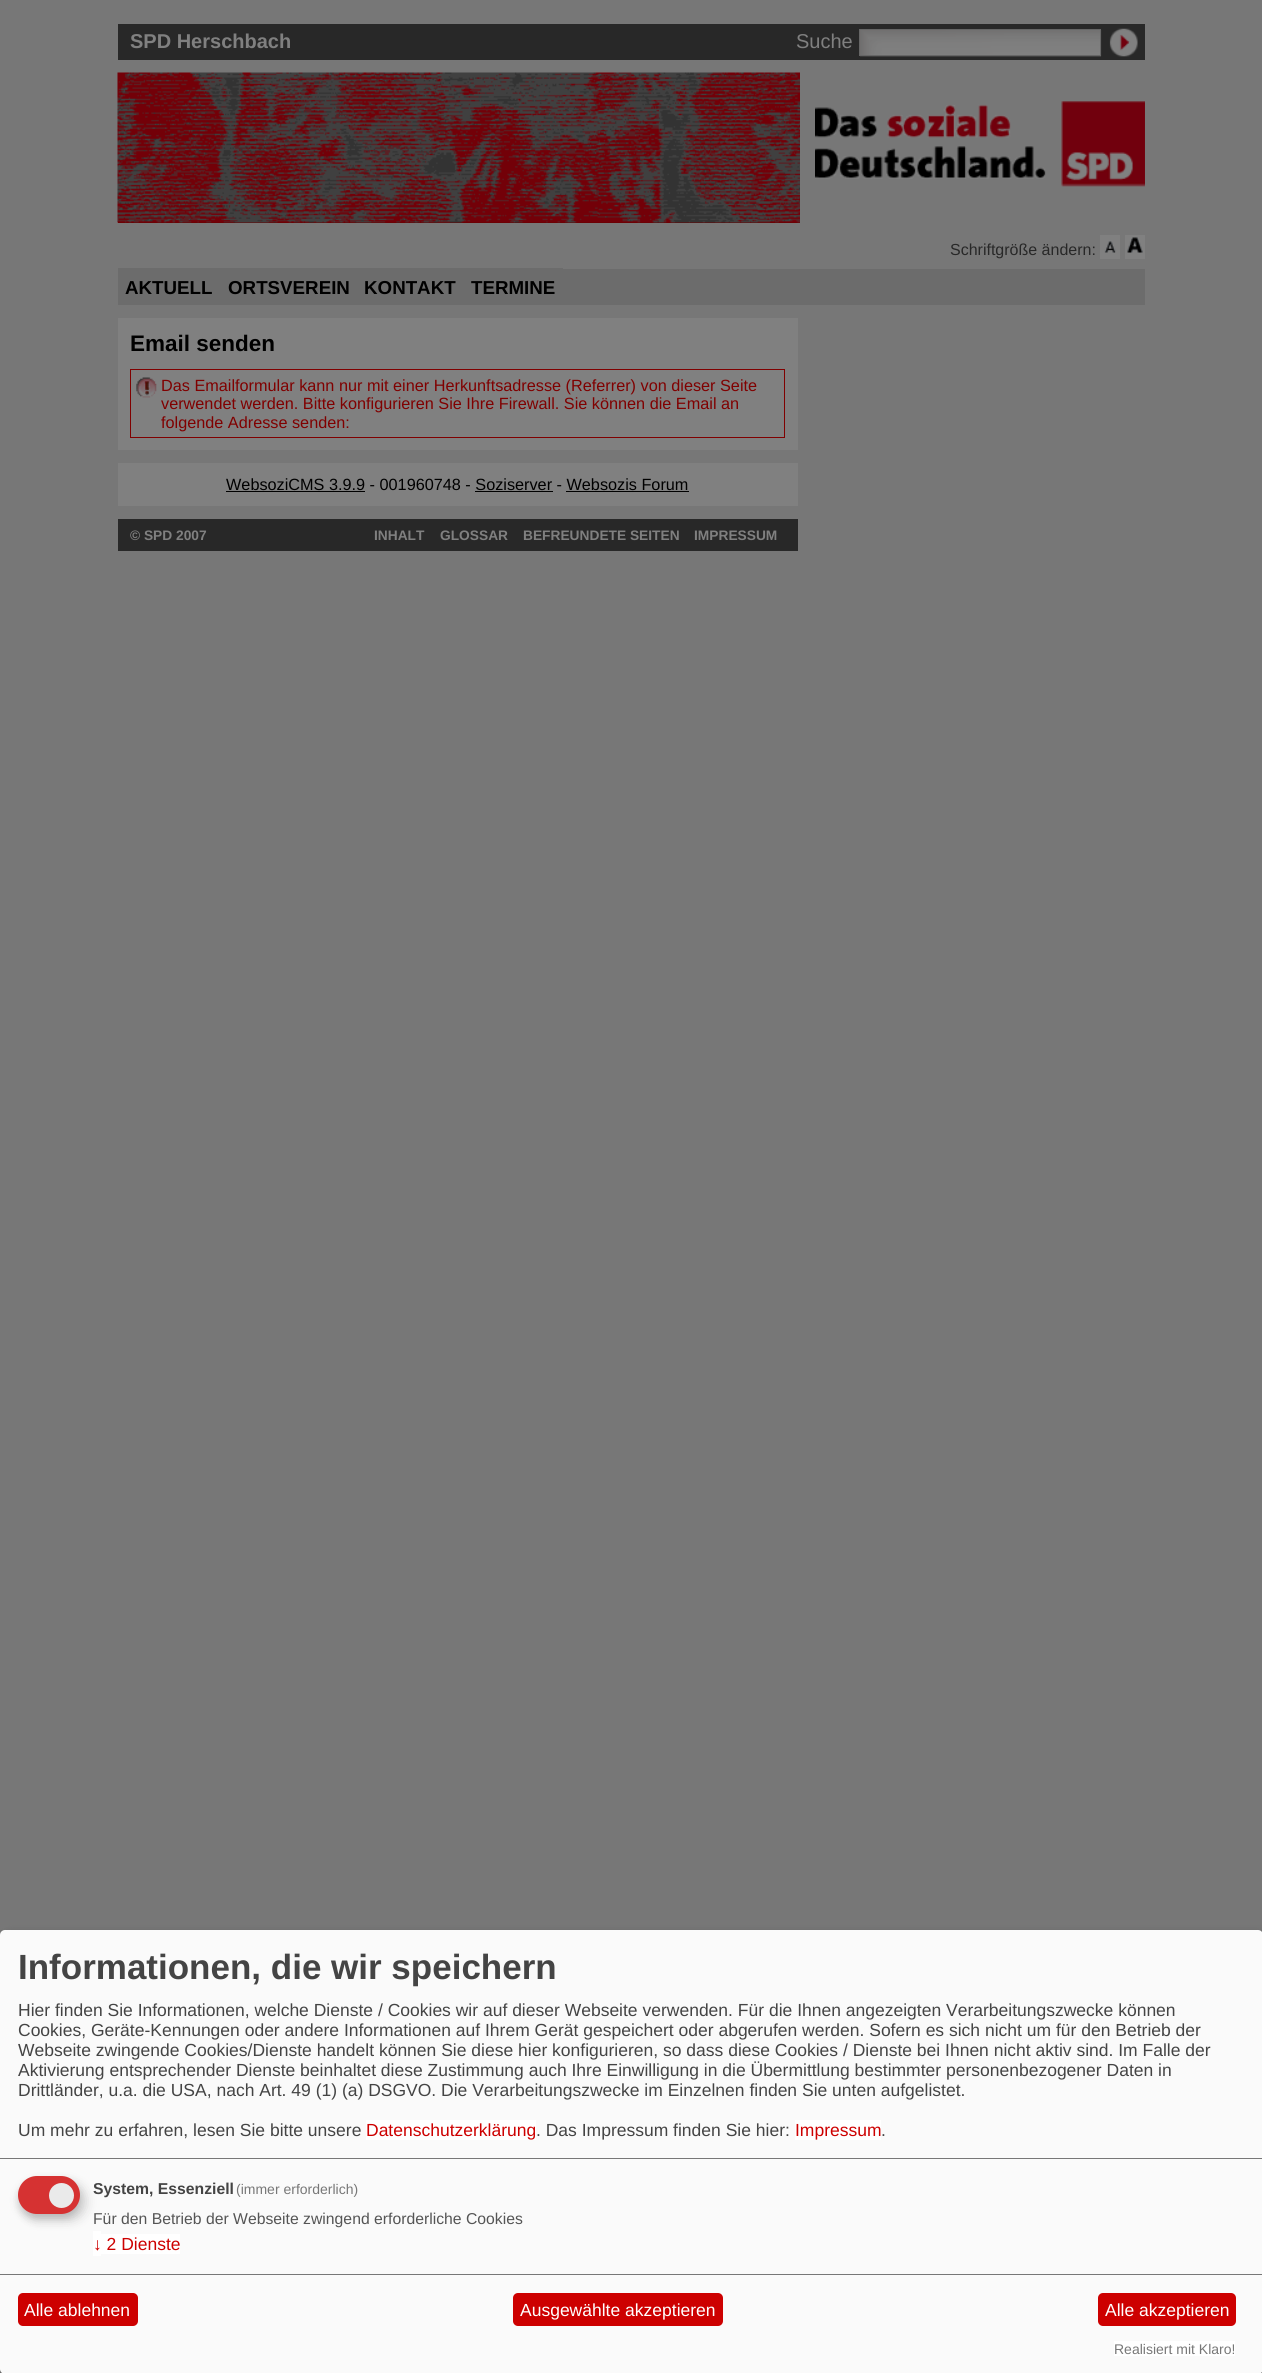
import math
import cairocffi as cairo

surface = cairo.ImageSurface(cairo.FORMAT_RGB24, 1262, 2373)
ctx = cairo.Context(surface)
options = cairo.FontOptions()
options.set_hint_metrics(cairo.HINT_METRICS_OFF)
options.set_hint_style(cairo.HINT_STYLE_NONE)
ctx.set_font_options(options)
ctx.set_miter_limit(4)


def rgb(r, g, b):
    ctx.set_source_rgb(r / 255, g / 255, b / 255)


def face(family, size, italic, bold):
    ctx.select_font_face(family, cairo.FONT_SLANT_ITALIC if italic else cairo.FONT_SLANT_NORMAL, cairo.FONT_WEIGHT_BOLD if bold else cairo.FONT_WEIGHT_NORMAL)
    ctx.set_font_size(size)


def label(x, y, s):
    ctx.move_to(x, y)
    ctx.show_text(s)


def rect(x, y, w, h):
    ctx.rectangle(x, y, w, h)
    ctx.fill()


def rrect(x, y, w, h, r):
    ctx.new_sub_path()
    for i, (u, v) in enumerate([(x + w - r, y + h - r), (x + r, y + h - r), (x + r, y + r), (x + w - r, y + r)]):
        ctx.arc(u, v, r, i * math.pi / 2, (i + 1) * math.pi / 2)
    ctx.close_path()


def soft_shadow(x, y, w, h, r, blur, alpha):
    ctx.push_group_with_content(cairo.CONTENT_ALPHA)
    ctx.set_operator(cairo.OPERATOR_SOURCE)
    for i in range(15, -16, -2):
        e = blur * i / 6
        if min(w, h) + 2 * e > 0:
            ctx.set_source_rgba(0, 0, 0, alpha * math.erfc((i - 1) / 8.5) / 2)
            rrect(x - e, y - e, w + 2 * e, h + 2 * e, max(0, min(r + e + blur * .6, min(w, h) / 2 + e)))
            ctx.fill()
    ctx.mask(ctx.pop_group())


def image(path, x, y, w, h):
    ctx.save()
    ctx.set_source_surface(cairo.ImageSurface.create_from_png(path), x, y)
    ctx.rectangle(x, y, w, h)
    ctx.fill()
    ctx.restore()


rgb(119, 119, 119)
ctx.paint()
rgb(40, 40, 40)
rect(118, 24, 1027, 36)
face('Liberation Sans', 20, 0, 1)
rgb(128, 128, 128)
label(130, 48, 'SPD Herschbach')
face('Liberation Sans', 20, 0, 0)
label(796, 48, 'Suche')
image('image0.png', 860, 30, 242, 27)
ctx.rectangle(859.5, 29.5, 241, 26)
rgb(102, 102, 102)
ctx.set_line_width(1)
ctx.stroke()
image('image1.png', 1101, 28, 37, 29)
rgb(102, 0, 0)
rect(118, 222, 682, 1)
image('image2.png', 117, 72, 683, 151)
image('image3.png', 815, 101, 330, 86)
face('Liberation Sans', 16, 0, 0)
rgb(40, 40, 40)
label(950, 255, 'Schriftgröße ändern:')
image('image4.png', 1100, 235, 20, 18)
image('image5.png', 1125, 235, 20, 18)
rgb(128, 128, 128)
rect(1100, 253, 20, 6)
rect(1125, 253, 20, 6)
rgb(108, 108, 108)
rect(563, 269, 582, 36)
rect(118, 268, 445, 37)
face('Liberation Sans', 18.75, 0, 1)
rgb(0, 0, 0)
label(125, 294, 'AKTUELL')
label(228, 294, 'ORTSVEREIN')
label(364, 294, 'KONTAKT')
label(471, 294, 'TERMINE')
rgb(128, 128, 128)
rect(118, 318, 680, 132)
face('Liberation Sans', 22.5, 0, 1)
rgb(0, 0, 0)
label(130, 351, 'Email senden')
image('image6.png', 136, 377, 21, 21)
ctx.rectangle(130.5, 369.5, 654, 68)
rgb(128, 0, 0)
ctx.stroke()
face('Liberation Sans', 16.25, 0, 0)
label(161, 391, 'Das Emailformular kann nur mit einer Herkunftsadresse (Referrer) von dieser Seite')
label(161, 409, 'verwendet werden. Bitte konfigurieren Sie Ihre Firewall. Sie können die Email an')
label(161, 428, 'folgende Adresse senden:')
rgb(128, 128, 128)
rect(118, 463, 680, 43)
rgb(0, 0, 0)
label(226, 490, 'WebsoziCMS 3.9.9 - 001960748 - Soziserver - Websozis Forum')
rect(226, 491, 139, 1)
rect(475, 491, 78, 1)
rect(566, 491, 123, 1)
rgb(40, 40, 40)
rect(118, 519, 680, 32)
face('Liberation Sans', 13.75, 0, 1)
rgb(128, 128, 128)
label(130, 540, '© SPD 2007')
label(374, 540, 'INHALT')
label(440, 540, 'GLOSSAR')
label(523, 540, 'BEFREUNDETE SEITEN')
label(694, 540, 'IMPRESSUM')
rgb(0, 0, 0)
soft_shadow(6, 1936, 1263, 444, 5, 6, 0.19)
soft_shadow(0, 1935, 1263, 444, 5, 4, 0.2)
rgb(250, 250, 250)
rrect(0, 1930, 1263, 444, 5)
ctx.fill()
rgb(119, 119, 119)
rect(0, 2158, 1262, 1)
face('Liberation Sans', 35, 0, 1)
rgb(68, 68, 68)
label(18, 1979, 'Informationen, die wir speichern')
face('Liberation Sans', 17.5, 0, 0)
label(18, 2016, 'Hier finden Sie Informationen, welche Dienste / Cookies wir auf dieser Webseite verwenden. Für die Ihnen angezeigten Verarbeitungszwecke können')
label(18, 2036, 'Cookies, Geräte-Kennungen oder andere Informationen auf Ihrem Gerät gespeichert oder abgerufen werden. Sofern es sich nicht um für den Betrieb der')
label(18, 2056, 'Webseite zwingende Cookies/Dienste handelt können Sie diese hier konfigurieren, so dass diese Cookies / Dienste bei Ihnen nicht aktiv sind. Im Falle der')
label(18, 2076, 'Aktivierung entsprechender Dienste beinhaltet diese Zustimmung auch Ihre Einwilligung in die Übermittlung bestimmter personenbezogener Daten in')
label(18, 2096, 'Drittländer, u.a. die USA, nach Art. 49 (1) (a) DSGVO. Die Verarbeitungszwecke im Einzelnen finden Sie unten aufgelistet.')
label(18, 2136, 'Um mehr zu erfahren, lesen Sie bitte unsere')
rgb(255, 255, 255)
rect(366, 2120, 170, 20)
rgb(205, 0, 0)
label(366, 2136, 'Datenschutzerklärung')
rgb(68, 68, 68)
label(536, 2136, '. Das Impressum finden Sie hier:')
rgb(255, 255, 255)
rect(795, 2120, 86, 20)
rgb(205, 0, 0)
label(795, 2136, 'Impressum')
rgb(68, 68, 68)
label(881, 2136, '.')
rgb(255, 255, 255)
rect(93, 2231, 8, 25)
rect(101, 2234, 79, 20)
rgb(0, 0, 0)
soft_shadow(24, 2183, 62, 37, 18.5, 6, 0.15)
rgb(50, 50, 50)
soft_shadow(18, 2181, 62, 38, 19, 4, 0.2)
rgb(214, 50, 50)
rrect(18, 2176, 62, 38, 19)
ctx.fill()
rgb(234, 234, 234)
ctx.arc(61.5, 2195.5, 12.5, 0, 2 * math.pi)
ctx.fill()
face('Liberation Sans', 15.75, 0, 1)
rgb(68, 68, 68)
label(93, 2194, 'System, Essenziell')
face('Liberation Sans', 14, 0, 0)
rgb(119, 119, 119)
label(236, 2194, '(immer erforderlich)')
face('Liberation Sans', 15.75, 0, 0)
rgb(85, 85, 85)
label(93, 2224, 'Für den Betrieb der Webseite zwingend erforderliche Cookies')
face('Liberation Sans', 17.5, 0, 0)
rgb(205, 0, 0)
label(93, 2250, '↓ 2 Dienste')
rgb(119, 119, 119)
rect(0, 2274, 1262, 1)
rgb(205, 0, 0)
rrect(18, 2293, 120, 33, 5)
ctx.fill()
rgb(255, 255, 255)
label(24, 2316, 'Alle ablehnen')
rgb(205, 0, 0)
rrect(513, 2293, 210, 33, 5)
ctx.fill()
rgb(255, 255, 255)
label(520, 2316, 'Ausgewählte akzeptieren')
rgb(205, 0, 0)
rrect(1098, 2293, 138, 33, 5)
ctx.fill()
rgb(255, 255, 255)
label(1105, 2316, 'Alle akzeptieren')
rect(1114, 2341, 121, 15)
face('Liberation Sans', 14, 0, 0)
rgb(119, 119, 119)
label(1114, 2354, 'Realisiert mit Klaro!')
surface.write_to_png('render.png')
